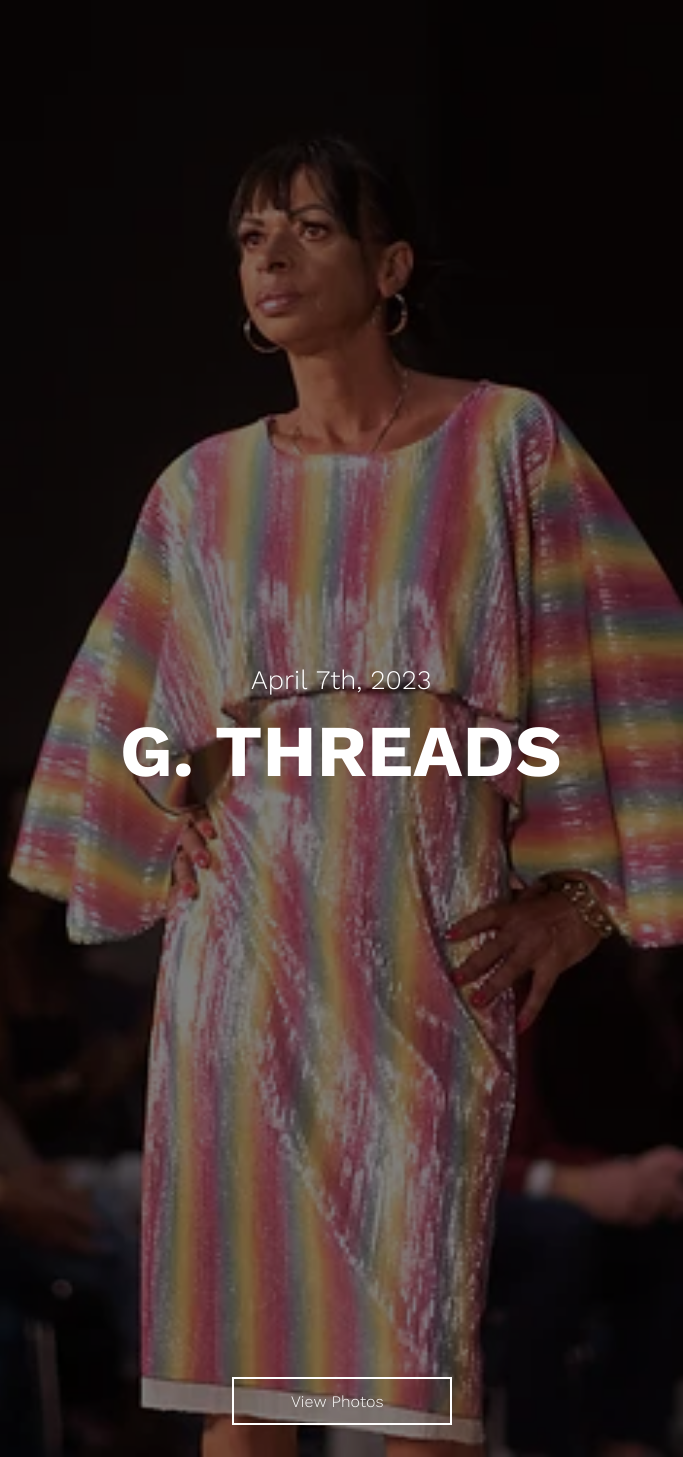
import math
import cairocffi as cairo

surface = cairo.ImageSurface(cairo.FORMAT_RGB24, 683, 1457)
ctx = cairo.Context(surface)
options = cairo.FontOptions()
options.set_hint_metrics(cairo.HINT_METRICS_OFF)
options.set_hint_style(cairo.HINT_STYLE_NONE)
ctx.set_font_options(options)
ctx.set_miter_limit(4)


def rgb(r, g, b):
    ctx.set_source_rgb(r / 255, g / 255, b / 255)


def face(family, size, italic, bold):
    ctx.select_font_face(family, cairo.FONT_SLANT_ITALIC if italic else cairo.FONT_SLANT_NORMAL, cairo.FONT_WEIGHT_BOLD if bold else cairo.FONT_WEIGHT_NORMAL)
    ctx.set_font_size(size)


def label(x, y, s):
    ctx.move_to(x, y)
    ctx.show_text(s)


def image(path, x, y, w, h):
    ctx.save()
    ctx.set_source_surface(cairo.ImageSurface.create_from_png(path), x, y)
    ctx.rectangle(x, y, w, h)
    ctx.fill()
    ctx.restore()


rgb(0, 0, 0)
ctx.paint()
image('image0.png', 0, 0, 683, 1457)
face('Work Sans Light', 26.75, 0, 0)
rgb(255, 255, 255)
label(251, 689, 'April 7th, 2023')
face('Work Sans', 73, 0, 1)
label(120, 776, 'G. THREADS')
ctx.rectangle(233, 1378, 218, 46)
ctx.stroke()
face('Work Sans Light', 16, 0, 0)
label(291, 1407, 'View Photos')
surface.write_to_png('render.png')
